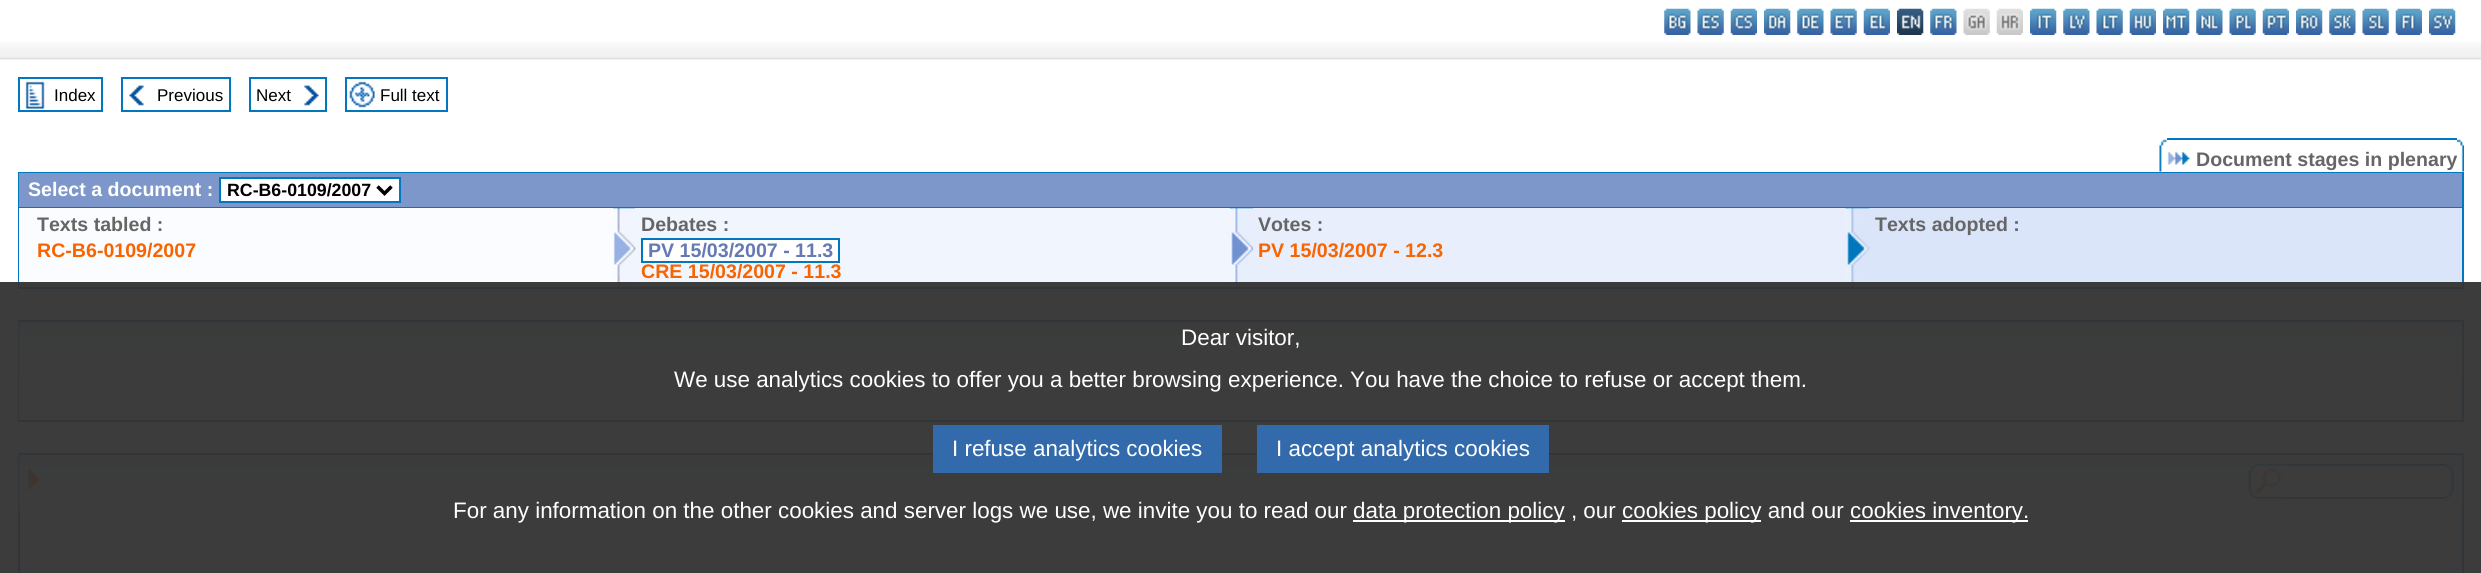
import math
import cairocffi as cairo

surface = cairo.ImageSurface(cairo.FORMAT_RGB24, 2481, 573)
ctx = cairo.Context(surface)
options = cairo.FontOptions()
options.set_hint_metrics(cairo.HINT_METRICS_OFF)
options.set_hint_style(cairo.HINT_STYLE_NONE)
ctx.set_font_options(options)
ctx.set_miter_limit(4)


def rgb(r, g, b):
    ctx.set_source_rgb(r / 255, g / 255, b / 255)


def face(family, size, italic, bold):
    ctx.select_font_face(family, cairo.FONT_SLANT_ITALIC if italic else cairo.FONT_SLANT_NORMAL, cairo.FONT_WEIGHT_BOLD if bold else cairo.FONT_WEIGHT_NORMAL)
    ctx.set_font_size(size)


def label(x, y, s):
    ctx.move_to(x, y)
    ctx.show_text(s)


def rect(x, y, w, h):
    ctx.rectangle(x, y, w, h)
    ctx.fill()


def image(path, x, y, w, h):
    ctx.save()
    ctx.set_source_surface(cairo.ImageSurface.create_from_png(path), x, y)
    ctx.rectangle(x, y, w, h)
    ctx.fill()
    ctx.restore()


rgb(255, 255, 255)
ctx.paint()
image('image0.png', 0, 42, 2481, 18)
image('image1.png', 1664, 8, 27, 27)
image('image2.png', 1697, 8, 27, 27)
image('image3.png', 1730, 8, 27, 27)
image('image4.png', 1764, 8, 27, 27)
image('image5.png', 1797, 8, 27, 27)
image('image6.png', 1830, 8, 27, 27)
image('image7.png', 1863, 8, 27, 27)
image('image8.png', 1897, 8, 27, 27)
image('image9.png', 1930, 8, 27, 27)
image('image10.png', 1963, 8, 27, 27)
image('image11.png', 1996, 8, 27, 27)
image('image12.png', 2030, 8, 27, 27)
image('image13.png', 2063, 8, 27, 27)
image('image14.png', 2096, 8, 27, 27)
image('image15.png', 2129, 8, 27, 27)
image('image16.png', 2163, 8, 27, 27)
image('image17.png', 2196, 8, 27, 27)
image('image18.png', 2229, 8, 27, 27)
image('image19.png', 2262, 8, 27, 27)
image('image20.png', 2296, 8, 27, 27)
image('image21.png', 2329, 8, 27, 27)
image('image22.png', 2362, 8, 27, 27)
image('image23.png', 2395, 8, 27, 27)
image('image24.png', 2429, 8, 27, 27)
ctx.rectangle(19, 78, 83, 33)
rgb(0, 119, 190)
ctx.stroke()
image('image25.png', 25, 81, 20, 28)
face('Liberation Sans', 17, 0, 0)
rgb(0, 0, 0)
label(54, 101, 'Index')
ctx.rectangle(122, 78, 108, 33)
rgb(0, 119, 190)
ctx.stroke()
image('image26.png', 129, 85, 15, 21)
rgb(0, 0, 0)
label(157, 101, 'Previous')
ctx.rectangle(250, 78, 76, 33)
rgb(0, 119, 190)
ctx.stroke()
rgb(0, 0, 0)
label(256, 101, 'Next')
image('image27.png', 304, 85, 15, 21)
ctx.rectangle(346, 78, 101, 33)
rgb(0, 119, 190)
ctx.stroke()
image('image28.png', 349, 81, 26, 27)
rgb(0, 0, 0)
label(380, 101, 'Full text')
image('image29.png', 2159, 139, 8, 33)
rgb(0, 119, 190)
rect(2167, 138, 290, 2)
image('image30.png', 2166, 141, 25, 24)
face('Liberation Sans', 19.6, 0, 1)
rgb(102, 102, 102)
label(2196, 166, 'Document stages in plenary')
image('image31.png', 2457, 139, 7, 33)
ctx.rectangle(19, 173, 2444, 115)
rgb(0, 119, 190)
ctx.stroke()
rgb(125, 151, 202)
rect(19, 173, 2443, 34)
rgb(0, 119, 190)
rect(19, 207, 2443, 2)
rgb(255, 255, 255)
label(28, 196, 'Select a document :')
ctx.rectangle(220, 178, 180, 24)
ctx.fill_preserve()
rgb(0, 119, 190)
ctx.stroke()
ctx.new_path()
ctx.move_to(377.5, 186.5)
ctx.line_to(384.5, 193.5)
ctx.line_to(391.5, 186.5)
rgb(0, 0, 0)
ctx.set_line_width(3.5)
ctx.stroke()
face('Liberation Sans', 17.75, 0, 1)
label(227, 196, 'RC-B6-0109/2007')
rgb(251, 252, 255)
rect(19, 208, 594, 79)
face('Liberation Sans', 19.6, 0, 1)
rgb(102, 102, 102)
label(37, 231, 'Texts tabled :')
rgb(248, 100, 0)
label(37, 257, 'RC-B6-0109/2007')
image('image32.png', 613, 208, 22, 79)
rgb(241, 245, 254)
rect(635, 208, 595, 79)
image('image33.png', 613, 229, 23, 39)
rgb(102, 102, 102)
label(641, 231, 'Debates :')
rgb(255, 255, 255)
ctx.rectangle(642, 239, 197, 23)
ctx.fill_preserve()
rgb(0, 119, 190)
ctx.set_line_width(2)
ctx.stroke()
rgb(102, 121, 180)
label(648, 257, 'PV 15/03/2007 - 11.3')
rgb(248, 100, 0)
label(641, 278, 'CRE 15/03/2007 - 11.3')
image('image34.png', 1230, 208, 23, 79)
image('image35.png', 1231, 232, 22, 33)
rgb(232, 238, 252)
rect(1253, 208, 593, 79)
rgb(102, 102, 102)
label(1258, 231, 'Votes :')
rgb(248, 100, 0)
label(1258, 257, 'PV 15/03/2007 - 12.3')
image('image36.png', 1846, 208, 23, 79)
image('image37.png', 1846, 230, 23, 37)
rgb(218, 229, 249)
rect(1869, 208, 593, 79)
rgb(102, 102, 102)
label(1875, 231, 'Texts adopted :')
ctx.rectangle(19, 321, 2444, 100)
rgb(0, 119, 190)
ctx.stroke()
image('image38.png', 19, 322, 2347, 54)
image('image39.png', 2366, 322, 97, 55)
rgb(245, 245, 245)
rect(19, 376, 2443, 44)
ctx.rectangle(19, 454, 2444, 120)
rgb(0, 119, 190)
ctx.stroke()
image('image40.png', 19, 455, 1061, 53)
image('image41.png', 28, 468, 11, 23)
image('image42.png', 1080, 455, 1383, 53)
rgb(255, 255, 255)
rect(2287, 466, 158, 22)
rgb(0, 119, 190)
rect(2287, 464, 158, 2)
rect(2287, 497, 158, 2)
image('image43.png', 2248, 463, 40, 36)
image('image44.png', 2444, 463, 10, 36)
ctx.set_source_rgba(0.2, 0.2, 0.2, 0.95)
rect(0, 282, 2481, 291)
face('Liberation Sans', 22.4, 0, 0)
rgb(255, 255, 255)
label(1181, 345, 'Dear visitor,')
label(674, 387, 'We use analytics cookies to offer you a better browsing experience. You have the choice to refuse or accept them.')
rgb(50, 106, 171)
rect(933, 425, 289, 48)
rgb(255, 255, 255)
label(952, 456, 'I refuse analytics cookies')
rgb(50, 106, 171)
rect(1257, 425, 292, 48)
rgb(255, 255, 255)
label(1276, 456, 'I accept analytics cookies')
label(453, 518, 'For any information on the other cookies and server logs we use, we invite you to read our')
rect(1353, 520, 212, 2)
label(1353, 518, 'data protection policy , our')
rect(1622, 520, 139, 2)
label(1622, 518, 'cookies policy and our')
rect(1850, 520, 178, 2)
label(1850, 518, 'cookies inventory.')
surface.write_to_png('render.png')
